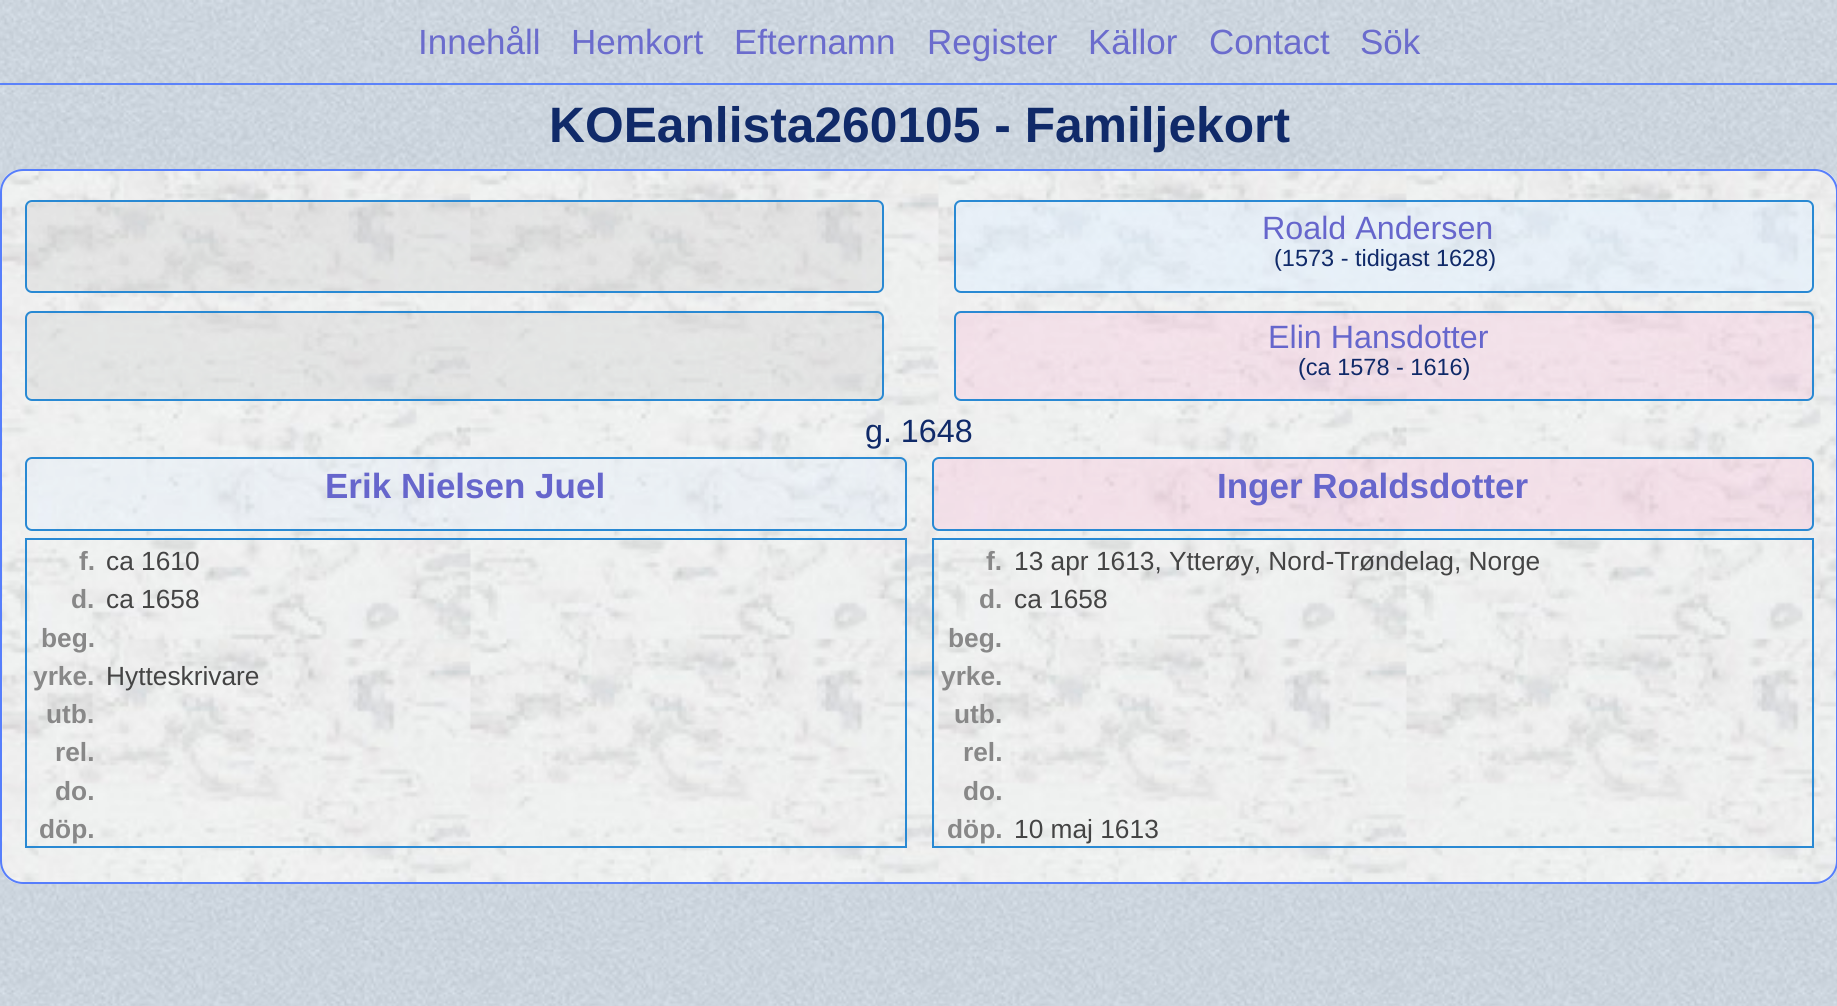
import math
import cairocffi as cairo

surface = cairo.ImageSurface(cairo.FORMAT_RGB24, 1837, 1006)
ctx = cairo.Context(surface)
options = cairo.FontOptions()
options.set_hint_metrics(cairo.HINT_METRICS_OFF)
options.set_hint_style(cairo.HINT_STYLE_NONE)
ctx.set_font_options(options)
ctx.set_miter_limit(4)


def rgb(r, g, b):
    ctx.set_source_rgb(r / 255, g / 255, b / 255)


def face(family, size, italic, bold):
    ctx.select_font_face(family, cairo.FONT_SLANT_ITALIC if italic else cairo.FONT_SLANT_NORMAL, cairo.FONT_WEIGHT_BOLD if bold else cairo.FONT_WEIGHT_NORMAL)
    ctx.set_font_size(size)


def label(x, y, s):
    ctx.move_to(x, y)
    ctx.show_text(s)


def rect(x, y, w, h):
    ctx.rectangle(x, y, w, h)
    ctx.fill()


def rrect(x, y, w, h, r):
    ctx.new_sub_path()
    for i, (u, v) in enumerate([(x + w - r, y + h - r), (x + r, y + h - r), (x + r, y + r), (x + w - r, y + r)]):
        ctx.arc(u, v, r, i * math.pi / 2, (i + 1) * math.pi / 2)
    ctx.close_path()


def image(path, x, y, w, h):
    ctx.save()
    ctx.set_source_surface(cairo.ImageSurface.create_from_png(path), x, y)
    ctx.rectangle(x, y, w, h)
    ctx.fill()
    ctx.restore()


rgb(255, 255, 255)
ctx.paint()
image('image0.png', 0, 0, 1837, 1006)
image('image1.png', 25, 0, 1801, 1)
image('image2.png', 0, 83, 1837, 2)
ctx.set_source_rgba(0.337, 0.494, 0.988, 0.95)
rect(0, 83, 1837, 2)
face('Liberation Sans', 35, 0, 0)
rgb(107, 108, 205)
label(418, 54, 'Innehåll')
label(571, 54, 'Hemkort')
label(734, 54, 'Efternamn')
label(927, 54, 'Register')
label(1088, 54, 'Källor')
label(1209, 54, 'Contact')
label(1360, 54, 'Sök')
face('Liberation Sans', 49.75, 0, 1)
rgb(16, 42, 105)
label(549, 142, 'KOEanlista260105 - Familjekort')
image('image3.png', 0, 169, 1837, 715)
rrect(1, 170, 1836, 713, 22)
rgb(86, 126, 252)
ctx.stroke()
ctx.set_source_rgba(0.784, 0.784, 0.784, 0.3)
rrect(26, 201, 857, 91, 6)
ctx.fill_preserve()
rgb(41, 137, 211)
ctx.stroke()
ctx.set_source_rgba(0.878, 0.937, 0.996, 0.51)
rrect(955, 201, 858, 91, 6)
ctx.fill_preserve()
rgb(41, 137, 211)
ctx.stroke()
face('Liberation Sans', 32.25, 0, 0)
rgb(102, 102, 204)
label(1262, 239, 'Roald Andersen')
face('Liberation Sans', 23.5, 0, 0)
rgb(16, 42, 105)
label(1274, 266, '(1573 - tidigast 1628)')
ctx.set_source_rgba(0.784, 0.784, 0.784, 0.3)
rrect(26, 312, 857, 88, 6)
ctx.fill_preserve()
rgb(41, 137, 211)
ctx.stroke()
ctx.set_source_rgba(0.988, 0.718, 0.839, 0.28)
rrect(955, 312, 858, 88, 6)
ctx.fill_preserve()
rgb(41, 137, 211)
ctx.stroke()
face('Liberation Sans', 32.25, 0, 0)
rgb(102, 102, 204)
label(1268, 348, 'Elin Hansdotter')
face('Liberation Sans', 23.5, 0, 0)
rgb(16, 42, 105)
label(1298, 375, '(ca 1578 - 1616)')
face('Liberation Sans', 32.25, 0, 0)
label(865, 442, 'g. 1648')
ctx.set_source_rgba(0.878, 0.937, 0.996, 0.3)
rrect(26, 458, 880, 72, 6)
ctx.fill_preserve()
rgb(41, 137, 211)
ctx.stroke()
face('Liberation Sans', 35, 0, 1)
rgb(102, 102, 204)
label(325, 498, 'Erik Nielsen Juel')
ctx.set_source_rgba(0.988, 0.718, 0.839, 0.3)
rrect(933, 458, 880, 72, 6)
ctx.fill_preserve()
rgb(41, 137, 211)
ctx.stroke()
rgb(102, 102, 204)
label(1217, 498, 'Inger Roaldsdotter')
ctx.rectangle(26, 539, 880, 308)
rgb(41, 137, 211)
ctx.stroke()
face('Liberation Sans', 26.3, 0, 1)
rgb(136, 136, 136)
label(79, 570, 'f.')
face('Liberation Sans', 26.3, 0, 0)
rgb(68, 68, 68)
label(106, 570, 'ca 1610')
face('Liberation Sans', 26.3, 0, 1)
rgb(136, 136, 136)
label(71, 608, 'd.')
face('Liberation Sans', 26.3, 0, 0)
rgb(68, 68, 68)
label(106, 608, 'ca 1658')
face('Liberation Sans', 26.3, 0, 1)
rgb(136, 136, 136)
label(41, 647, 'beg.')
label(33, 685, 'yrke.')
face('Liberation Sans', 26.3, 0, 0)
rgb(68, 68, 68)
label(106, 685, 'Hytteskrivare')
face('Liberation Sans', 26.3, 0, 1)
rgb(136, 136, 136)
label(46, 723, 'utb.')
label(55, 761, 'rel.')
label(55, 800, 'do.')
label(39, 838, 'döp.')
ctx.rectangle(933, 539, 880, 308)
rgb(41, 137, 211)
ctx.stroke()
rgb(136, 136, 136)
label(986, 570, 'f.')
face('Liberation Sans', 26.3, 0, 0)
rgb(68, 68, 68)
label(1014, 570, '13 apr 1613, Ytterøy, Nord-Trøndelag, Norge')
face('Liberation Sans', 26.3, 0, 1)
rgb(136, 136, 136)
label(979, 608, 'd.')
face('Liberation Sans', 26.3, 0, 0)
rgb(68, 68, 68)
label(1014, 608, 'ca 1658')
face('Liberation Sans', 26.3, 0, 1)
rgb(136, 136, 136)
label(948, 647, 'beg.')
label(941, 685, 'yrke.')
label(954, 723, 'utb.')
label(963, 761, 'rel.')
label(963, 800, 'do.')
label(947, 838, 'döp.')
face('Liberation Sans', 26.3, 0, 0)
rgb(68, 68, 68)
label(1014, 838, '10 maj 1613')
surface.write_to_png('render.png')
